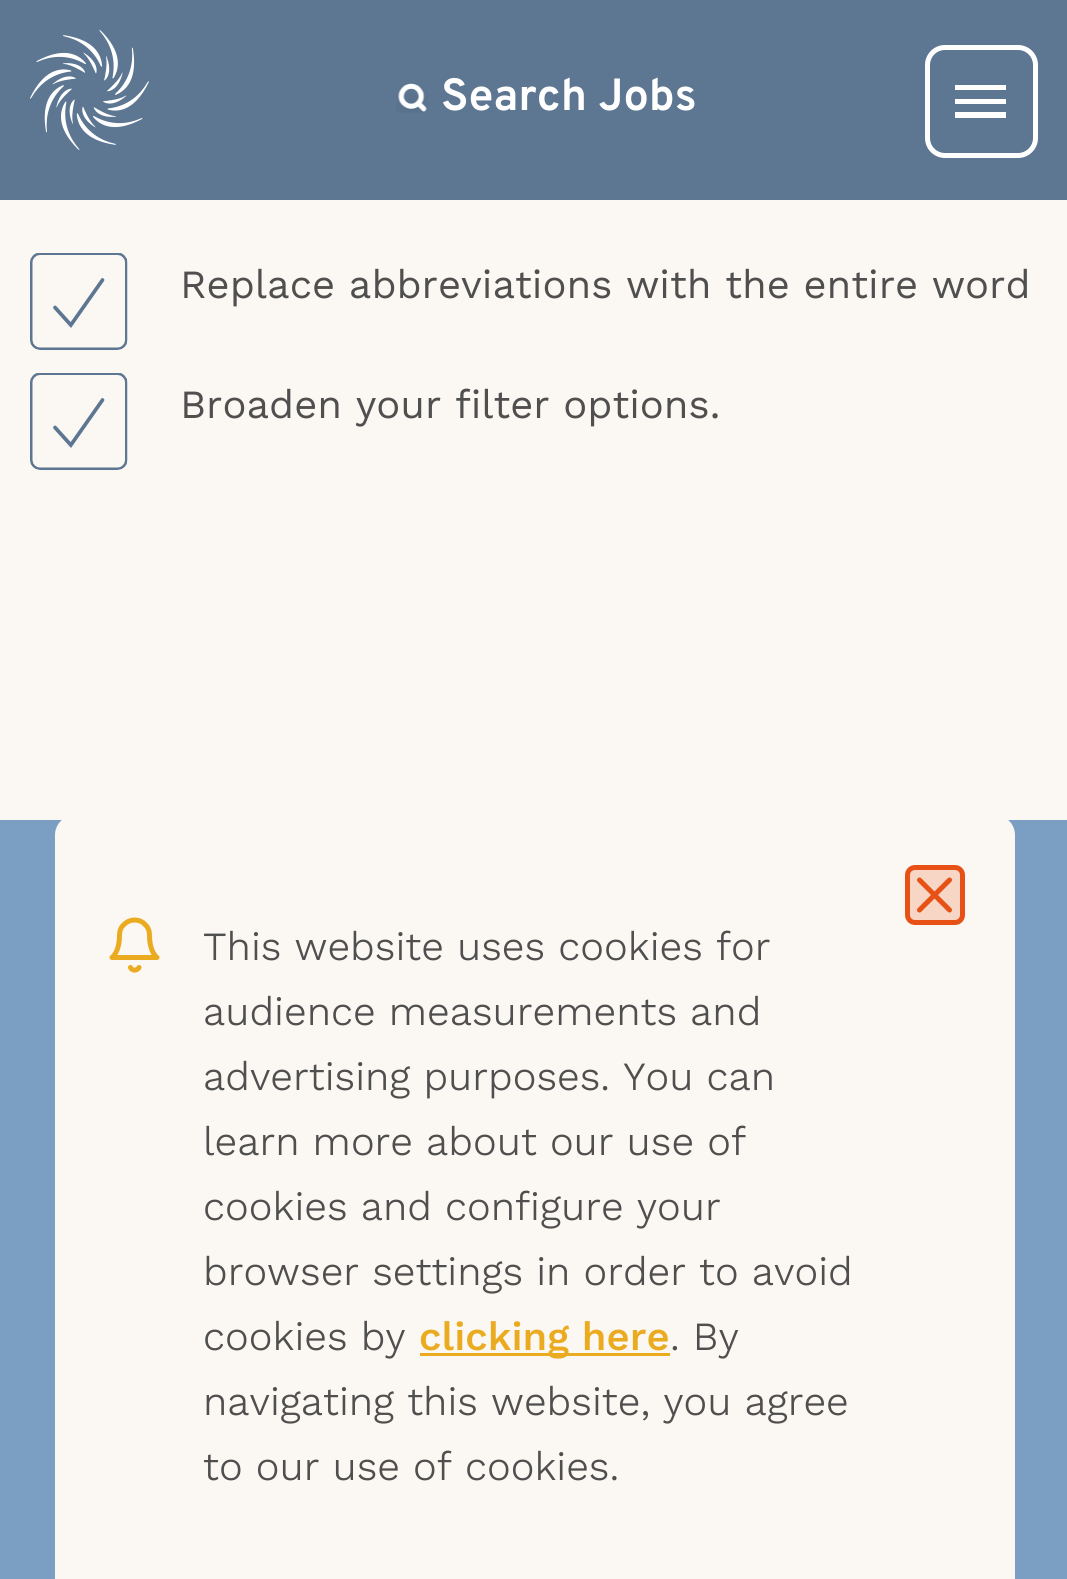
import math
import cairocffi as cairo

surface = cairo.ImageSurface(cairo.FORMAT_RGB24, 1067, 1579)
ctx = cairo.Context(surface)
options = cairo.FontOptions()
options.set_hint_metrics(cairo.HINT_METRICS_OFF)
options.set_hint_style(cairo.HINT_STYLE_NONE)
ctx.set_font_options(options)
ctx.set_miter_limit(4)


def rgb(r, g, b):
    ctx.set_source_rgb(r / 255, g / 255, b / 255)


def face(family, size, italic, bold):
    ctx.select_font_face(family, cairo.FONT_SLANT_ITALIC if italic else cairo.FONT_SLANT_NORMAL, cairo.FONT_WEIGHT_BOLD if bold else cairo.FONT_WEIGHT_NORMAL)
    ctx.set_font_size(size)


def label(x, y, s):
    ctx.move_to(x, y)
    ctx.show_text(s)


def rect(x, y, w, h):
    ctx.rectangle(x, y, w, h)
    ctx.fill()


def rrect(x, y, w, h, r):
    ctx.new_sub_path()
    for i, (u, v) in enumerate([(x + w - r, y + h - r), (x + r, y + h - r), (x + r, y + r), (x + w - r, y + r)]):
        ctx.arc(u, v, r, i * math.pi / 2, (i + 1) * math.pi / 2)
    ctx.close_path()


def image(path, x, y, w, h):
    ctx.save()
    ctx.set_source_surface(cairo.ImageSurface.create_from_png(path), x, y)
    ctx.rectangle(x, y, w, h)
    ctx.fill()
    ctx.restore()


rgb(123, 159, 195)
ctx.paint()
rgb(93, 118, 146)
rect(0, 0, 1067, 200)
image('image0.png', 30, 30, 119, 120)
image('image1.png', 396, 83, 32, 30)
face('Overpass SemiBold', 45, 0, 0)
rgb(255, 255, 255)
label(441, 110, 'Search Jobs')
ctx.new_path()
ctx.move_to(955, 85)
ctx.line_to(1006, 85)
ctx.line_to(1006, 90)
ctx.line_to(955, 90)
ctx.close_path()
ctx.move_to(955, 99)
ctx.line_to(1006, 99)
ctx.line_to(1006, 104)
ctx.line_to(955, 104)
ctx.close_path()
ctx.move_to(955, 112)
ctx.line_to(1006, 112)
ctx.line_to(1006, 118)
ctx.line_to(955, 118)
ctx.close_path()
ctx.fill()
rrect(927.5, 47.5, 108, 108, 17.5)
ctx.set_line_width(5)
ctx.stroke()
rgb(251, 247, 242)
rect(0, 200, 1067, 620)
image('image2.png', 30, 253, 98, 97)
face('Work Sans', 40, 0, 0)
rgb(79, 79, 79)
label(180, 298, 'Replace abbreviations with the entire word')
image('image2.png', 30, 373, 98, 97)
label(180, 418, 'Broaden your filter options.')
rgb(251, 247, 242)
ctx.new_path()
ctx.move_to(75, 815)
ctx.line_to(995, 815)
ctx.curve_to(1006, 815, 1015, 824, 1015, 835)
ctx.line_to(1015, 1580)
ctx.line_to(55, 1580)
ctx.line_to(55, 835)
ctx.curve_to(55, 824, 64, 815, 75, 815)
ctx.close_path()
ctx.fill()
rgb(247, 214, 198)
rrect(907.5, 867.5, 55, 55, 7.5)
ctx.fill_preserve()
rgb(232, 81, 22)
ctx.stroke()
ctx.new_path()
ctx.move_to(949.5, 880)
ctx.line_to(919.5, 910)
ctx.move_to(919.5, 880)
ctx.line_to(949.5, 910)
ctx.set_line_cap(cairo.LINE_CAP_ROUND)
ctx.set_line_join(cairo.LINE_JOIN_ROUND)
ctx.stroke()
ctx.new_path()
ctx.move_to(149.5, 935)
ctx.curve_to(149.5, 931, 148, 927, 145, 924.5)
ctx.curve_to(142.5, 921.5, 138.5, 920, 134.5, 920)
ctx.curve_to(130.5, 920, 127, 921.5, 124, 924.5)
ctx.curve_to(121, 927, 119.5, 931, 119.5, 935)
ctx.curve_to(119.5, 952.5, 112, 957.5, 112, 957.5)
ctx.line_to(157, 957.5)
ctx.curve_to(157, 957.5, 149.5, 952.5, 149.5, 935)
ctx.close_path()
ctx.move_to(139, 967.5)
ctx.curve_to(137, 971, 132, 971, 130.5, 967.5)
rgb(235, 171, 33)
ctx.stroke()
face('Work Sans Light', 40, 0, 0)
rgb(79, 79, 79)
label(203, 960, 'This website uses cookies for')
label(203, 1025, 'audience measurements and')
label(203, 1090, 'advertising purposes. You can')
label(203, 1155, 'learn more about our use of')
label(203, 1220, 'cookies and configure your')
label(203, 1285, 'browser settings in order to avoid')
label(203, 1350, 'cookies by')
rgb(235, 171, 33)
rect(420, 1353, 250, 3)
face('Work Sans Medium', 40, 0, 0)
label(419, 1350, 'clicking here')
face('Work Sans Light', 40, 0, 0)
rgb(79, 79, 79)
label(670, 1350, '. By')
label(203, 1415, 'navigating this website, you agree')
label(203, 1480, 'to our use of cookies.')
surface.write_to_png('render.png')
